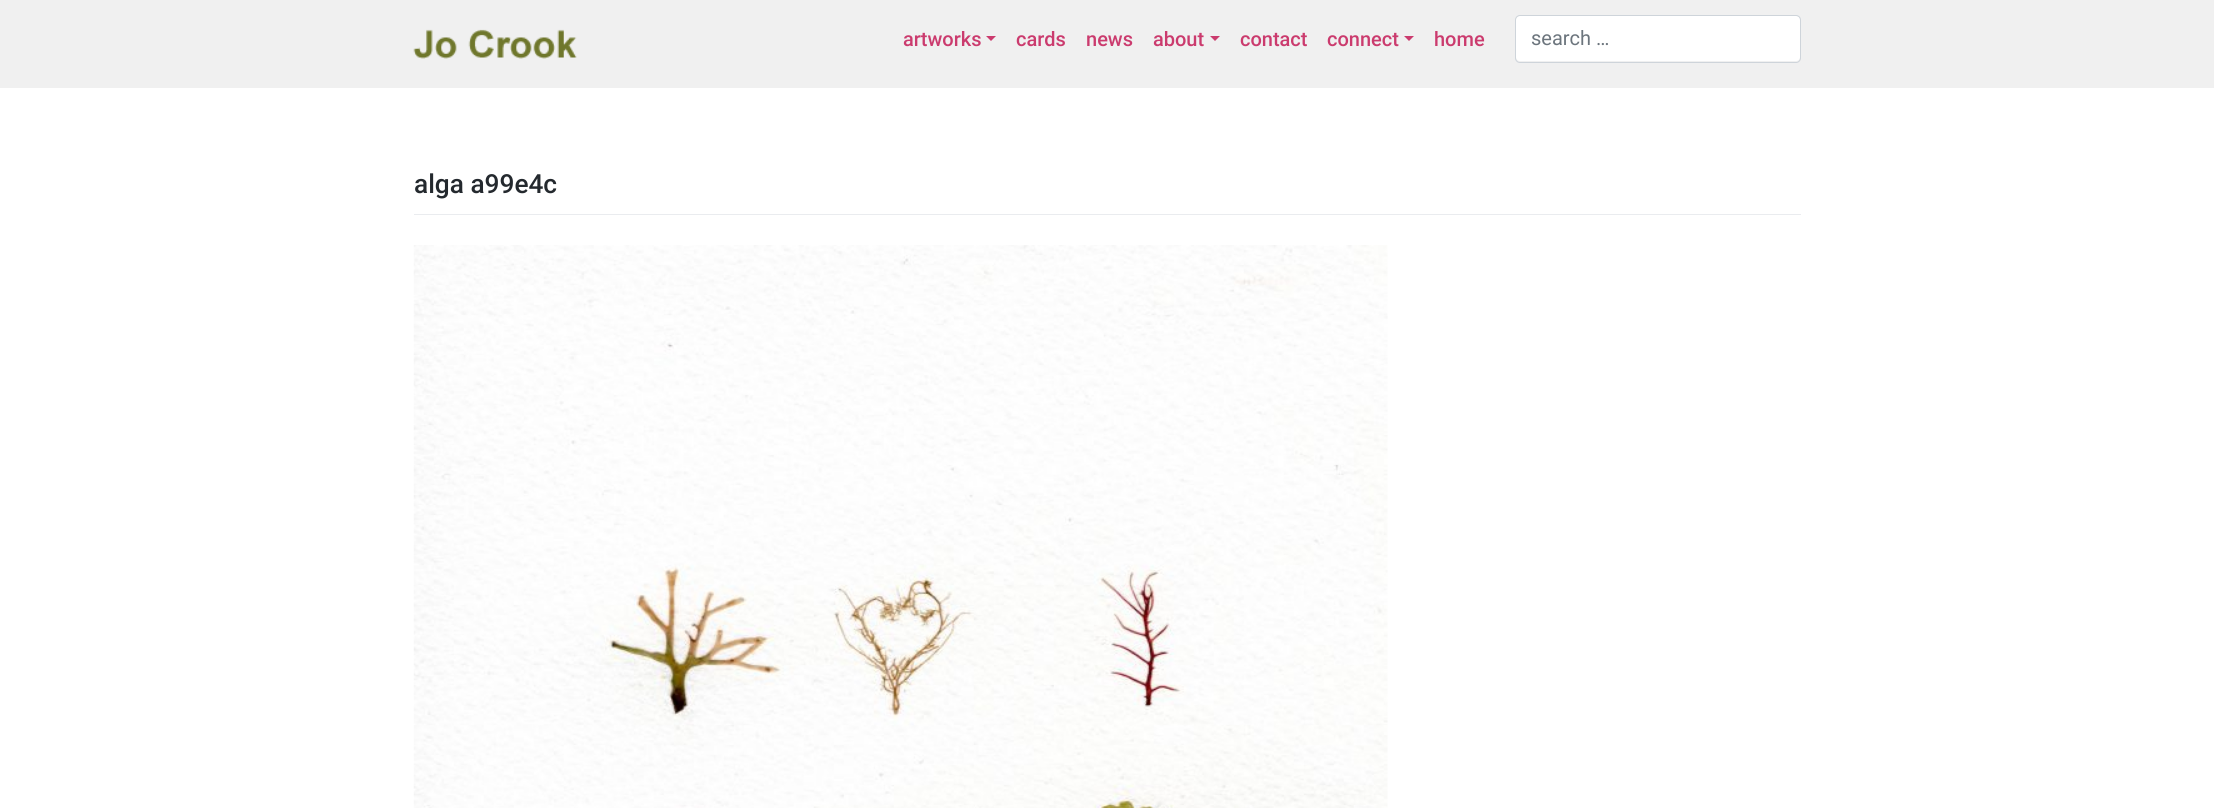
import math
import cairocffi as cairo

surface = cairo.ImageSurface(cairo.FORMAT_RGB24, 2214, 808)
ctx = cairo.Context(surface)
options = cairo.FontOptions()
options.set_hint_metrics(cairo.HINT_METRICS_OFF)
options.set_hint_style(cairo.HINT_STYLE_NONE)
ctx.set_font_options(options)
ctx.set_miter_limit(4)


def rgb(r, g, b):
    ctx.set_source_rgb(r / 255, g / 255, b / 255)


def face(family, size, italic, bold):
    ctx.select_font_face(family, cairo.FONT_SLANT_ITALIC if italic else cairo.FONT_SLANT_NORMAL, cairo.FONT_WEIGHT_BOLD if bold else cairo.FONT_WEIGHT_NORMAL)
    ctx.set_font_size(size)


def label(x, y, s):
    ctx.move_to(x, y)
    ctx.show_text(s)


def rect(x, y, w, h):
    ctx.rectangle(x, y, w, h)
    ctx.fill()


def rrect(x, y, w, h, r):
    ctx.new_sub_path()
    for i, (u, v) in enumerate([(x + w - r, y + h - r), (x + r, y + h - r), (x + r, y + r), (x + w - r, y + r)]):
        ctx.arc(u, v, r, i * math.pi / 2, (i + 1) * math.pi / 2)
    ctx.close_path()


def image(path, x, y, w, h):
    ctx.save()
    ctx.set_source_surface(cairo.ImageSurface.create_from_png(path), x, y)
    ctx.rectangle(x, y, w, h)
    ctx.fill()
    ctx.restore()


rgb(255, 255, 255)
ctx.paint()
rgb(240, 240, 240)
rect(0, 0, 2214, 88)
image('image0.png', 413, 29, 164, 30)
face('Roboto Medium', 20, 0, 0)
rgb(203, 59, 110)
label(903, 46, 'artworks')
ctx.new_path()
ctx.move_to(986, 36)
ctx.line_to(996, 36)
ctx.line_to(991, 41)
ctx.close_path()
ctx.fill()
label(1016, 46, 'cards')
label(1086, 46, 'news')
label(1153, 46, 'about')
ctx.new_path()
ctx.move_to(1210, 36)
ctx.line_to(1220, 36)
ctx.line_to(1215, 41)
ctx.close_path()
ctx.fill()
label(1240, 46, 'contact')
label(1327, 46, 'connect')
ctx.new_path()
ctx.move_to(1404, 36)
ctx.line_to(1414, 36)
ctx.line_to(1409, 41)
ctx.close_path()
ctx.fill()
label(1434, 46, 'home')
rgb(255, 255, 255)
rrect(1516, 16, 284, 45, 4)
ctx.fill()
rrect(1515.5, 15.5, 285, 47, 4.5)
rgb(206, 212, 218)
ctx.set_line_width(1)
ctx.stroke()
face('Roboto', 20, 0, 0)
rgb(108, 117, 125)
label(1531, 45, 'search …')
rgb(234, 236, 239)
rect(414, 214, 1387, 1)
face('Roboto Medium', 26.25, 0, 0)
rgb(36, 41, 46)
label(414, 193, 'alga a99e4c')
image('image1.png', 413, 245, 975, 563)
surface.write_to_png('render.png')
